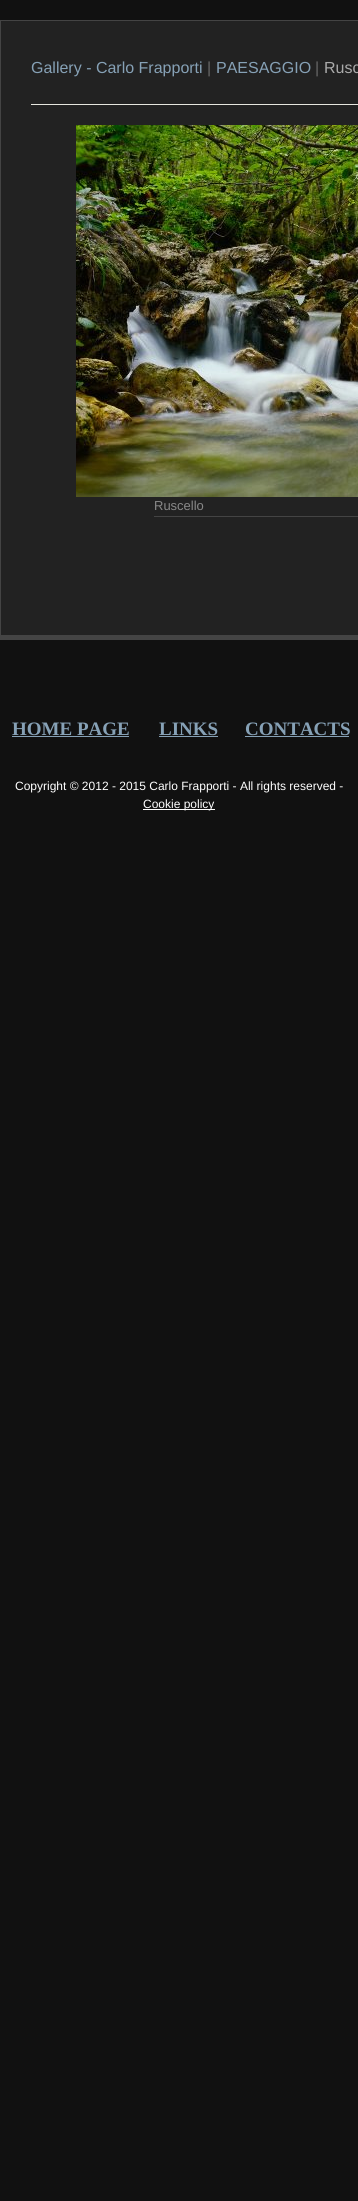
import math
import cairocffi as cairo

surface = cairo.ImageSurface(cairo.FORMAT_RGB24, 358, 2201)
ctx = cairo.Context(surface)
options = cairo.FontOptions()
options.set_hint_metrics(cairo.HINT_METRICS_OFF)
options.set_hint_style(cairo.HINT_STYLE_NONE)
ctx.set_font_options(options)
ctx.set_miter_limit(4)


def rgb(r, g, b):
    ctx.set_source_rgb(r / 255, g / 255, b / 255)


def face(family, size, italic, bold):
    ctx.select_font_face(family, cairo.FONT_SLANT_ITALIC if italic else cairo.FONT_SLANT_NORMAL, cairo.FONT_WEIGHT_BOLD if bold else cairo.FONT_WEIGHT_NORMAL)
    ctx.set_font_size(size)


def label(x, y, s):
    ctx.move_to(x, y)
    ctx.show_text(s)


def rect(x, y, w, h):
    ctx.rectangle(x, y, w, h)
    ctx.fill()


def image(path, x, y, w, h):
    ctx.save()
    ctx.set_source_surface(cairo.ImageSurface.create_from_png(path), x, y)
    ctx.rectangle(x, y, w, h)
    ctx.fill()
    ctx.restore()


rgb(17, 17, 17)
ctx.paint()
rgb(34, 34, 34)
rect(1, 21, 357, 614)
rgb(68, 68, 68)
rect(0, 20, 358, 1)
rect(0, 635, 358, 5)
rect(0, 20, 1, 620)
rgb(230, 230, 223)
rect(31, 104, 327, 1)
face('Liberation Sans', 16, 0, 0)
rgb(134, 161, 182)
label(31, 73, 'Gallery - Carlo Frapporti')
rgb(102, 102, 102)
label(207, 73, '|')
rgb(134, 161, 182)
label(216, 73, 'PAESAGGIO')
rgb(102, 102, 102)
label(315, 73, '|')
rgb(170, 170, 170)
label(324, 73, 'Rusc')
image('image0.png', 76, 125, 282, 372)
face('Liberation Sans', 13, 0, 0)
rgb(136, 136, 136)
label(154, 510, 'Ruscello')
rgb(68, 68, 68)
rect(154, 516, 204, 1)
face('Liberation Serif', 19, 0, 1)
rgb(134, 161, 182)
label(12, 735, 'HOME PAGE')
rect(12, 736, 117, 1)
label(159, 735, 'LINKS')
rect(159, 736, 59, 1)
label(245, 735, 'CONTACTS')
rect(245, 736, 104, 1)
face('Liberation Sans', 12, 0, 0)
rgb(255, 255, 255)
label(15, 790, 'Copyright © 2012 - 2015 Carlo Frapporti - All rights reserved -')
rect(143, 809, 72, 1)
label(143, 808, 'Cookie policy')
surface.write_to_png('render.png')
